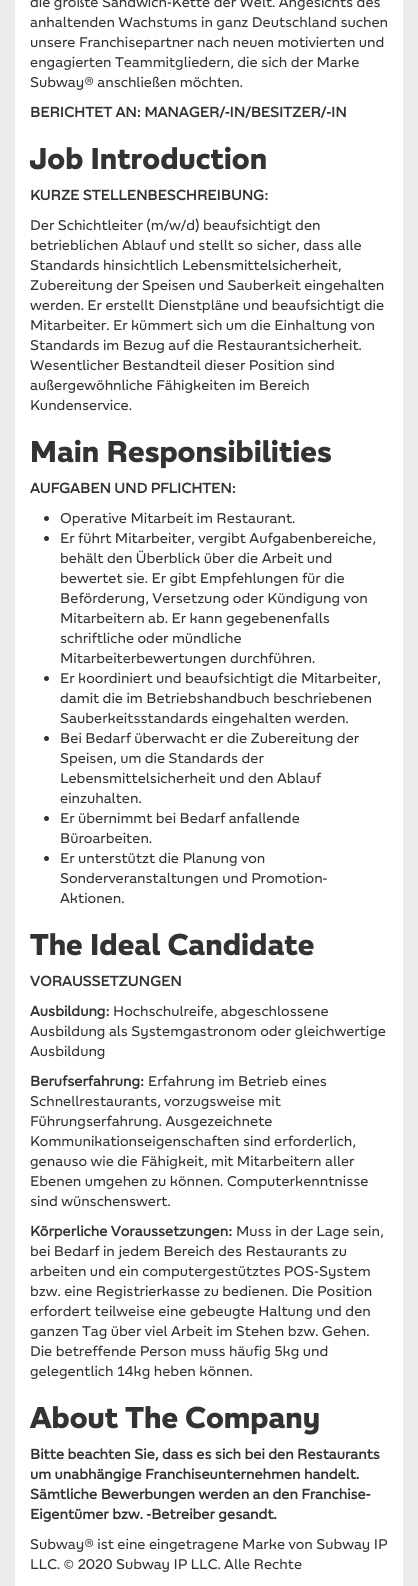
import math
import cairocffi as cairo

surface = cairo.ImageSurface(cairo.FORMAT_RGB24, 418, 1586)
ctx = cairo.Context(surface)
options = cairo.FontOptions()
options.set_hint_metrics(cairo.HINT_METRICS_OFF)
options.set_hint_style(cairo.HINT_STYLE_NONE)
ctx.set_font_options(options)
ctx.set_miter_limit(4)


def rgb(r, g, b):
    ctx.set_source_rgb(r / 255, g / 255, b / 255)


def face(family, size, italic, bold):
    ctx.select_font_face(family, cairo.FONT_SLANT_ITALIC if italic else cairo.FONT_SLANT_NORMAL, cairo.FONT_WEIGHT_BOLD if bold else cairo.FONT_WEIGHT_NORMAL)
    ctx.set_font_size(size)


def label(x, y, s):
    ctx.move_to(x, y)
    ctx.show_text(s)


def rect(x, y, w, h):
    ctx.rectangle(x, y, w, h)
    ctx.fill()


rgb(236, 236, 236)
ctx.paint()
rgb(255, 255, 255)
rect(15, 0, 388, 1586)
face('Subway', 14, 0, 0)
rgb(51, 51, 51)
label(30, 7, 'die größte Sandwich-Kette der Welt. Angesichts des')
label(30, 27, 'anhaltenden Wachstums in ganz Deutschland suchen')
label(30, 47, 'unsere Franchisepartner nach neuen motivierten und')
label(30, 67, 'engagierten Teammitgliedern, die sich der Marke')
label(30, 87, 'Subway® anschließen möchten.')
face('Subway', 14, 0, 1)
label(30, 117, 'BERICHTET AN: MANAGER/-IN/BESITZER/-IN')
face('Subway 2', 30, 0, 1)
label(30, 169, 'Job Introduction')
face('Subway', 14, 0, 1)
label(30, 200, 'KURZE STELLENBESCHREIBUNG:')
face('Subway', 14, 0, 0)
label(30, 230, 'Der Schichtleiter (m/w/d) beaufsichtigt den')
label(30, 250, 'betrieblichen Ablauf und stellt so sicher, dass alle')
label(30, 270, 'Standards hinsichtlich Lebensmittelsicherheit,')
label(30, 290, 'Zubereitung der Speisen und Sauberkeit eingehalten')
label(30, 310, 'werden. Er erstellt Dienstpläne und beaufsichtigt die')
label(30, 330, 'Mitarbeiter. Er kümmert sich um die Einhaltung von')
label(30, 350, 'Standards im Bezug auf die Restaurantsicherheit.')
label(30, 370, 'Wesentlicher Bestandteil dieser Position sind')
label(30, 390, 'außergewöhnliche Fähigkeiten im Bereich')
label(30, 410, 'Kundenservice.')
face('Subway 2', 30, 0, 1)
label(30, 462, 'Main Responsibilities')
face('Subway', 14, 0, 1)
label(30, 493, 'AUFGABEN UND PFLICHTEN:')
ctx.new_path()
ctx.arc(46.5, 518.5, 2.5, 0, 2 * math.pi)
ctx.fill()
face('Subway', 14, 0, 0)
label(60, 523, 'Operative Mitarbeit im Restaurant.')
ctx.new_path()
ctx.arc(46.5, 538.5, 2.5, 0, 2 * math.pi)
ctx.fill()
label(60, 543, 'Er führt Mitarbeiter, vergibt Aufgabenbereiche,')
label(60, 563, 'behält den Überblick über die Arbeit und')
label(60, 583, 'bewertet sie. Er gibt Empfehlungen für die')
label(60, 603, 'Beförderung, Versetzung oder Kündigung von')
label(60, 623, 'Mitarbeitern ab. Er kann gegebenenfalls')
label(60, 643, 'schriftliche oder mündliche')
label(60, 663, 'Mitarbeiterbewertungen durchführen.')
ctx.new_path()
ctx.arc(46.5, 678.5, 2.5, 0, 2 * math.pi)
ctx.fill()
label(60, 683, 'Er koordiniert und beaufsichtigt die Mitarbeiter,')
label(60, 703, 'damit die im Betriebshandbuch beschriebenen')
label(60, 723, 'Sauberkeitsstandards eingehalten werden.')
ctx.new_path()
ctx.arc(46.5, 738.5, 2.5, 0, 2 * math.pi)
ctx.fill()
label(60, 743, 'Bei Bedarf überwacht er die Zubereitung der')
label(60, 763, 'Speisen, um die Standards der')
label(60, 783, 'Lebensmittelsicherheit und den Ablauf')
label(60, 803, 'einzuhalten.')
ctx.new_path()
ctx.arc(46.5, 818.5, 2.5, 0, 2 * math.pi)
ctx.fill()
label(60, 823, 'Er übernimmt bei Bedarf anfallende')
label(60, 843, 'Büroarbeiten.')
ctx.new_path()
ctx.arc(46.5, 858.5, 2.5, 0, 2 * math.pi)
ctx.fill()
label(60, 863, 'Er unterstützt die Planung von')
label(60, 883, 'Sonderveranstaltungen und Promotion-')
label(60, 903, 'Aktionen.')
face('Subway 2', 30, 0, 1)
label(30, 955, 'The Ideal Candidate')
face('Subway', 14, 0, 1)
label(30, 986, 'VORAUSSETZUNGEN')
label(30, 1016, 'Ausbildung:')
face('Subway', 14, 0, 0)
label(113, 1016, 'Hochschulreife, abgeschlossene')
label(30, 1036, 'Ausbildung als Systemgastronom oder gleichwertige')
label(30, 1056, 'Ausbildung')
face('Subway', 14, 0, 1)
label(30, 1086, 'Berufserfahrung:')
face('Subway', 14, 0, 0)
label(148, 1086, 'Erfahrung im Betrieb eines')
label(30, 1106, 'Schnellrestaurants, vorzugsweise mit')
label(30, 1126, 'Führungserfahrung. Ausgezeichnete')
label(30, 1146, 'Kommunikationseigenschaften sind erforderlich,')
label(30, 1166, 'genauso wie die Fähigkeit, mit Mitarbeitern aller')
label(30, 1186, 'Ebenen umgehen zu können. Computerkenntnisse')
label(30, 1206, 'sind wünschenswert.')
face('Subway', 14, 0, 1)
label(30, 1236, 'Körperliche Voraussetzungen:')
face('Subway', 14, 0, 0)
label(236, 1236, 'Muss in der Lage sein,')
label(30, 1256, 'bei Bedarf in jedem Bereich des Restaurants zu')
label(30, 1276, 'arbeiten und ein computergestütztes POS-System')
label(30, 1296, 'bzw. eine Registrierkasse zu bedienen. Die Position')
label(30, 1316, 'erfordert teilweise eine gebeugte Haltung und den')
label(30, 1336, 'ganzen Tag über viel Arbeit im Stehen bzw. Gehen.')
label(30, 1356, 'Die betreffende Person muss häufig 5kg und')
label(30, 1376, 'gelegentlich 14kg heben können.')
face('Subway 2', 30, 0, 1)
label(30, 1428, 'About The Company')
face('Subway', 14, 0, 1)
label(30, 1459, 'Bitte beachten Sie, dass es sich bei den Restaurants')
label(30, 1479, 'um unabhängige Franchiseunternehmen handelt.')
label(30, 1499, 'Sämtliche Bewerbungen werden an den Franchise-')
label(30, 1519, 'Eigentümer bzw. -Betreiber gesandt.')
face('Subway', 14, 0, 0)
label(30, 1549, 'Subway® ist eine eingetragene Marke von Subway IP')
label(30, 1569, 'LLC. © 2020 Subway IP LLC. Alle Rechte')
surface.write_to_png('render.png')
